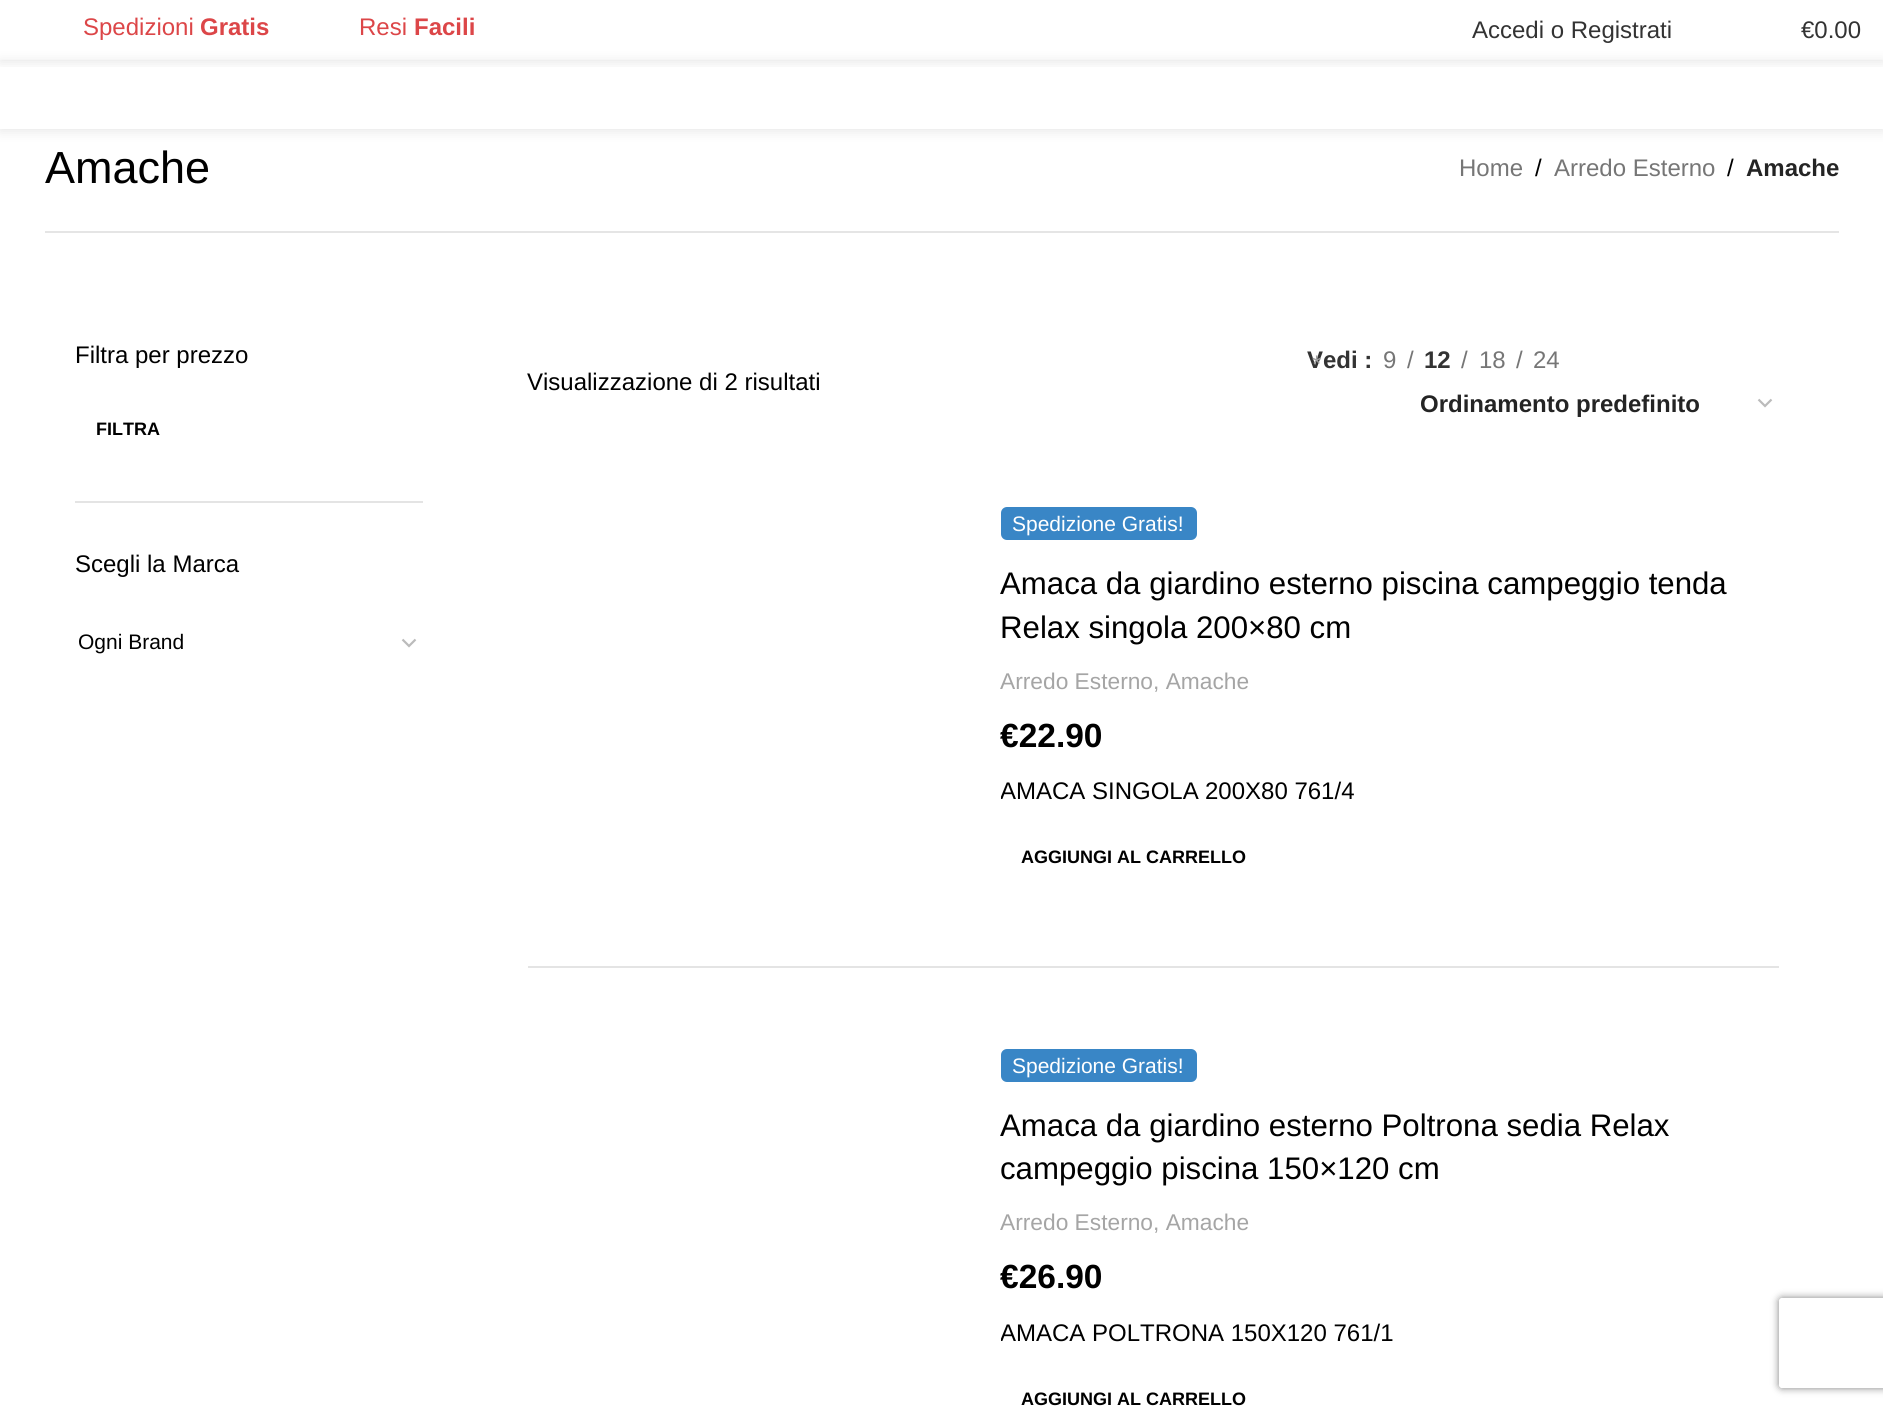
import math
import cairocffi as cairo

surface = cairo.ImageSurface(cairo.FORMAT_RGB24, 1883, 1408)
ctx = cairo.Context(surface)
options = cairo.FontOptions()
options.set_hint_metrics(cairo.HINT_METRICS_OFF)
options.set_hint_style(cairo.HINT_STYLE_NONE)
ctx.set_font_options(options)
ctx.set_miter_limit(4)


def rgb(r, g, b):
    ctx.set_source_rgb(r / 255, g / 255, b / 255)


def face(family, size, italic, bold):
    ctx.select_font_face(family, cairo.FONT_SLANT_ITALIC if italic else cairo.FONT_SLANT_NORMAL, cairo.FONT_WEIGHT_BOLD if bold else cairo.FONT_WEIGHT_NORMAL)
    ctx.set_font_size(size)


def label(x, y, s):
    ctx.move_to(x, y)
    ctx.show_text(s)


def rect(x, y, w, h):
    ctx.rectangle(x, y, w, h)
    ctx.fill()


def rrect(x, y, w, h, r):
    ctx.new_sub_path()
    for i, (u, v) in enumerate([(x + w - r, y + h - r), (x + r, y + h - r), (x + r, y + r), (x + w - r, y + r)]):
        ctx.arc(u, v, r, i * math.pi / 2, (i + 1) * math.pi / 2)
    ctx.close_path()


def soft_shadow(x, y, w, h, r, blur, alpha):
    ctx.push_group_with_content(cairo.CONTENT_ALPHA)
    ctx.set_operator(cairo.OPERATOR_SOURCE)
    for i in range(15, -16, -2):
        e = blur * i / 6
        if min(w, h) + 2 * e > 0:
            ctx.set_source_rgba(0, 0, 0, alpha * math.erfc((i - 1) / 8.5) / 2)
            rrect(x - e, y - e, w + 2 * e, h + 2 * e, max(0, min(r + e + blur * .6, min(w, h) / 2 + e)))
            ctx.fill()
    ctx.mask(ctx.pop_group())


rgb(255, 255, 255)
ctx.paint()
ctx.save()
ctx.rectangle(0, 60, 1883, 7)
ctx.clip()
rgb(0, 0, 0)
soft_shadow(0, 2, 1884, 60, 0, 6, 0.1)
ctx.restore()
face('Liberation Sans', 24, 0, 0)
rgb(220, 70, 72)
label(83, 35, 'Spedizioni')
face('Liberation Sans', 24, 0, 1)
label(200, 35, 'Gratis')
face('Liberation Sans', 24, 0, 0)
label(359, 35, 'Resi')
face('Liberation Sans', 24, 0, 1)
label(414, 35, 'Facili')
face('Liberation Sans', 24, 0, 0)
rgb(51, 51, 51)
label(1472, 38, 'Accedi o Registrati')
face('Liberation Sans', 24, 0, 1)
label(1307, 368, 'Vedi :')
face('Liberation Sans', 24, 0, 0)
rgb(158, 158, 158)
label(1312, 372, '*')
rgb(51, 51, 51)
label(1801, 38, '€0.00')
ctx.save()
ctx.set_fill_rule(cairo.FILL_RULE_EVEN_ODD)
ctx.new_path()
ctx.move_to(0, 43)
ctx.line_to(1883, 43)
ctx.line_to(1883, 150)
ctx.line_to(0, 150)
ctx.close_path()
ctx.move_to(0, 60)
ctx.line_to(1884, 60)
ctx.line_to(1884, 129)
ctx.line_to(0, 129)
ctx.close_path()
ctx.clip()
rgb(0, 0, 0)
soft_shadow(0, 62, 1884, 69, 0, 6, 0.1)
ctx.restore()
face('Liberation Sans', 45, 0, 0)
rgb(0, 0, 0)
label(45, 183, 'Amache')
face('Liberation Sans', 24, 0, 0)
rgb(118, 118, 118)
label(1459, 176, 'Home')
rgb(0, 0, 0)
label(1535, 176, '/')
rgb(118, 118, 118)
label(1554, 176, 'Arredo Esterno')
rgb(0, 0, 0)
label(1727, 176, '/')
face('Liberation Sans', 24, 0, 1)
rgb(36, 36, 36)
label(1746, 176, 'Amache')
rgb(229, 229, 229)
rect(45, 231, 1794, 2)
rgb(228, 228, 228)
rect(75, 501, 348, 2)
face('Liberation Sans', 24, 0, 0)
rgb(0, 0, 0)
label(75, 363, 'Filtra per prezzo')
face('Liberation Sans', 18, 0, 1)
label(96, 435, 'FILTRA')
face('Liberation Sans', 24, 0, 0)
label(75, 572, 'Scegli la Marca')
ctx.new_path()
ctx.move_to(402.5, 639.5)
ctx.line_to(409, 646)
ctx.line_to(415.5, 639.5)
rgb(187, 187, 187)
ctx.set_line_width(2.2)
ctx.stroke()
face('Liberation Sans', 21, 0, 0)
rgb(0, 0, 0)
label(78, 649, 'Ogni Brand')
face('Liberation Sans', 24, 0, 0)
label(527, 390, 'Visualizzazione di 2 risultati')
rgb(118, 118, 118)
label(1383, 368, '9')
label(1407, 368, '/')
face('Liberation Sans', 24, 0, 1)
rgb(51, 51, 51)
label(1424, 368, '12')
face('Liberation Sans', 24, 0, 0)
rgb(118, 118, 118)
label(1461, 368, '/')
label(1479, 368, '18')
label(1516, 368, '/')
label(1533, 368, '24')
ctx.new_path()
ctx.move_to(1758.5, 399.5)
ctx.line_to(1765, 406)
ctx.line_to(1771.5, 399.5)
rgb(187, 187, 187)
ctx.stroke()
face('Liberation Sans', 24, 0, 1)
rgb(36, 36, 36)
label(1420, 412, 'Ordinamento predefinito')
rgb(228, 228, 228)
rect(528, 966, 1251, 2)
rgb(57, 134, 198)
rrect(1001, 507, 196, 33, 6)
ctx.fill()
face('Liberation Sans', 21, 0, 0)
rgb(255, 255, 255)
label(1012, 531, 'Spedizione Gratis!')
face('Liberation Sans', 31.2, 0, 0)
rgb(0, 0, 0)
label(1000, 594, 'Amaca da giardino esterno piscina campeggio tenda')
label(1000, 638, 'Relax singola 200×80 cm')
face('Liberation Sans', 22.75, 0, 0)
rgb(165, 165, 165)
label(1000, 689, 'Arredo Esterno, Amache')
face('Liberation Sans', 33.5, 0, 1)
rgb(0, 0, 0)
label(1000, 747, '€22.90')
ctx.save()
ctx.rectangle(1001, 773, 778, 39)
ctx.clip()
face('Liberation Sans', 24, 0, 0)
label(1000, 799, 'AMACA SINGOLA')
ctx.restore()
face('Liberation Sans', 24, 0, 0)
label(1205, 799, '200X80 761/4')
face('Liberation Sans', 18, 0, 1)
label(1021, 863, 'AGGIUNGI AL CARRELLO')
rgb(57, 134, 198)
rrect(1001, 1049, 196, 33, 6)
ctx.fill()
face('Liberation Sans', 21, 0, 0)
rgb(255, 255, 255)
label(1012, 1073, 'Spedizione Gratis!')
face('Liberation Sans', 31.2, 0, 0)
rgb(0, 0, 0)
label(1000, 1136, 'Amaca da giardino esterno Poltrona sedia Relax')
label(1000, 1179, 'campeggio piscina 150×120 cm')
face('Liberation Sans', 22.75, 0, 0)
rgb(165, 165, 165)
label(1000, 1230, 'Arredo Esterno, Amache')
face('Liberation Sans', 33.5, 0, 1)
rgb(0, 0, 0)
label(1000, 1288, '€26.90')
ctx.save()
ctx.rectangle(1001, 1314, 778, 39)
ctx.clip()
face('Liberation Sans', 24, 0, 0)
label(1000, 1341, 'AMACA POLTRONA 150X120 761/1')
ctx.restore()
face('Liberation Sans', 18, 0, 1)
label(1021, 1405, 'AGGIUNGI AL CARRELLO')
ctx.save()
ctx.set_fill_rule(cairo.FILL_RULE_EVEN_ODD)
ctx.new_path()
ctx.move_to(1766, 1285)
ctx.line_to(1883, 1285)
ctx.line_to(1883, 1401)
ctx.line_to(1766, 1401)
ctx.close_path()
ctx.move_to(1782, 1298)
ctx.line_to(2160, 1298)
ctx.curve_to(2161.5, 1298, 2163, 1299.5, 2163, 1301)
ctx.line_to(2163, 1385)
ctx.curve_to(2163, 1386.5, 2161.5, 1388, 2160, 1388)
ctx.line_to(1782, 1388)
ctx.curve_to(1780.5, 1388, 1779, 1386.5, 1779, 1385)
ctx.line_to(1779, 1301)
ctx.curve_to(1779, 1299.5, 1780.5, 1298, 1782, 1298)
ctx.close_path()
ctx.clip()
rgb(128, 128, 128)
soft_shadow(1779, 1298, 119, 90, 3, 4, 1)
ctx.restore()
surface.write_to_png('render.png')
